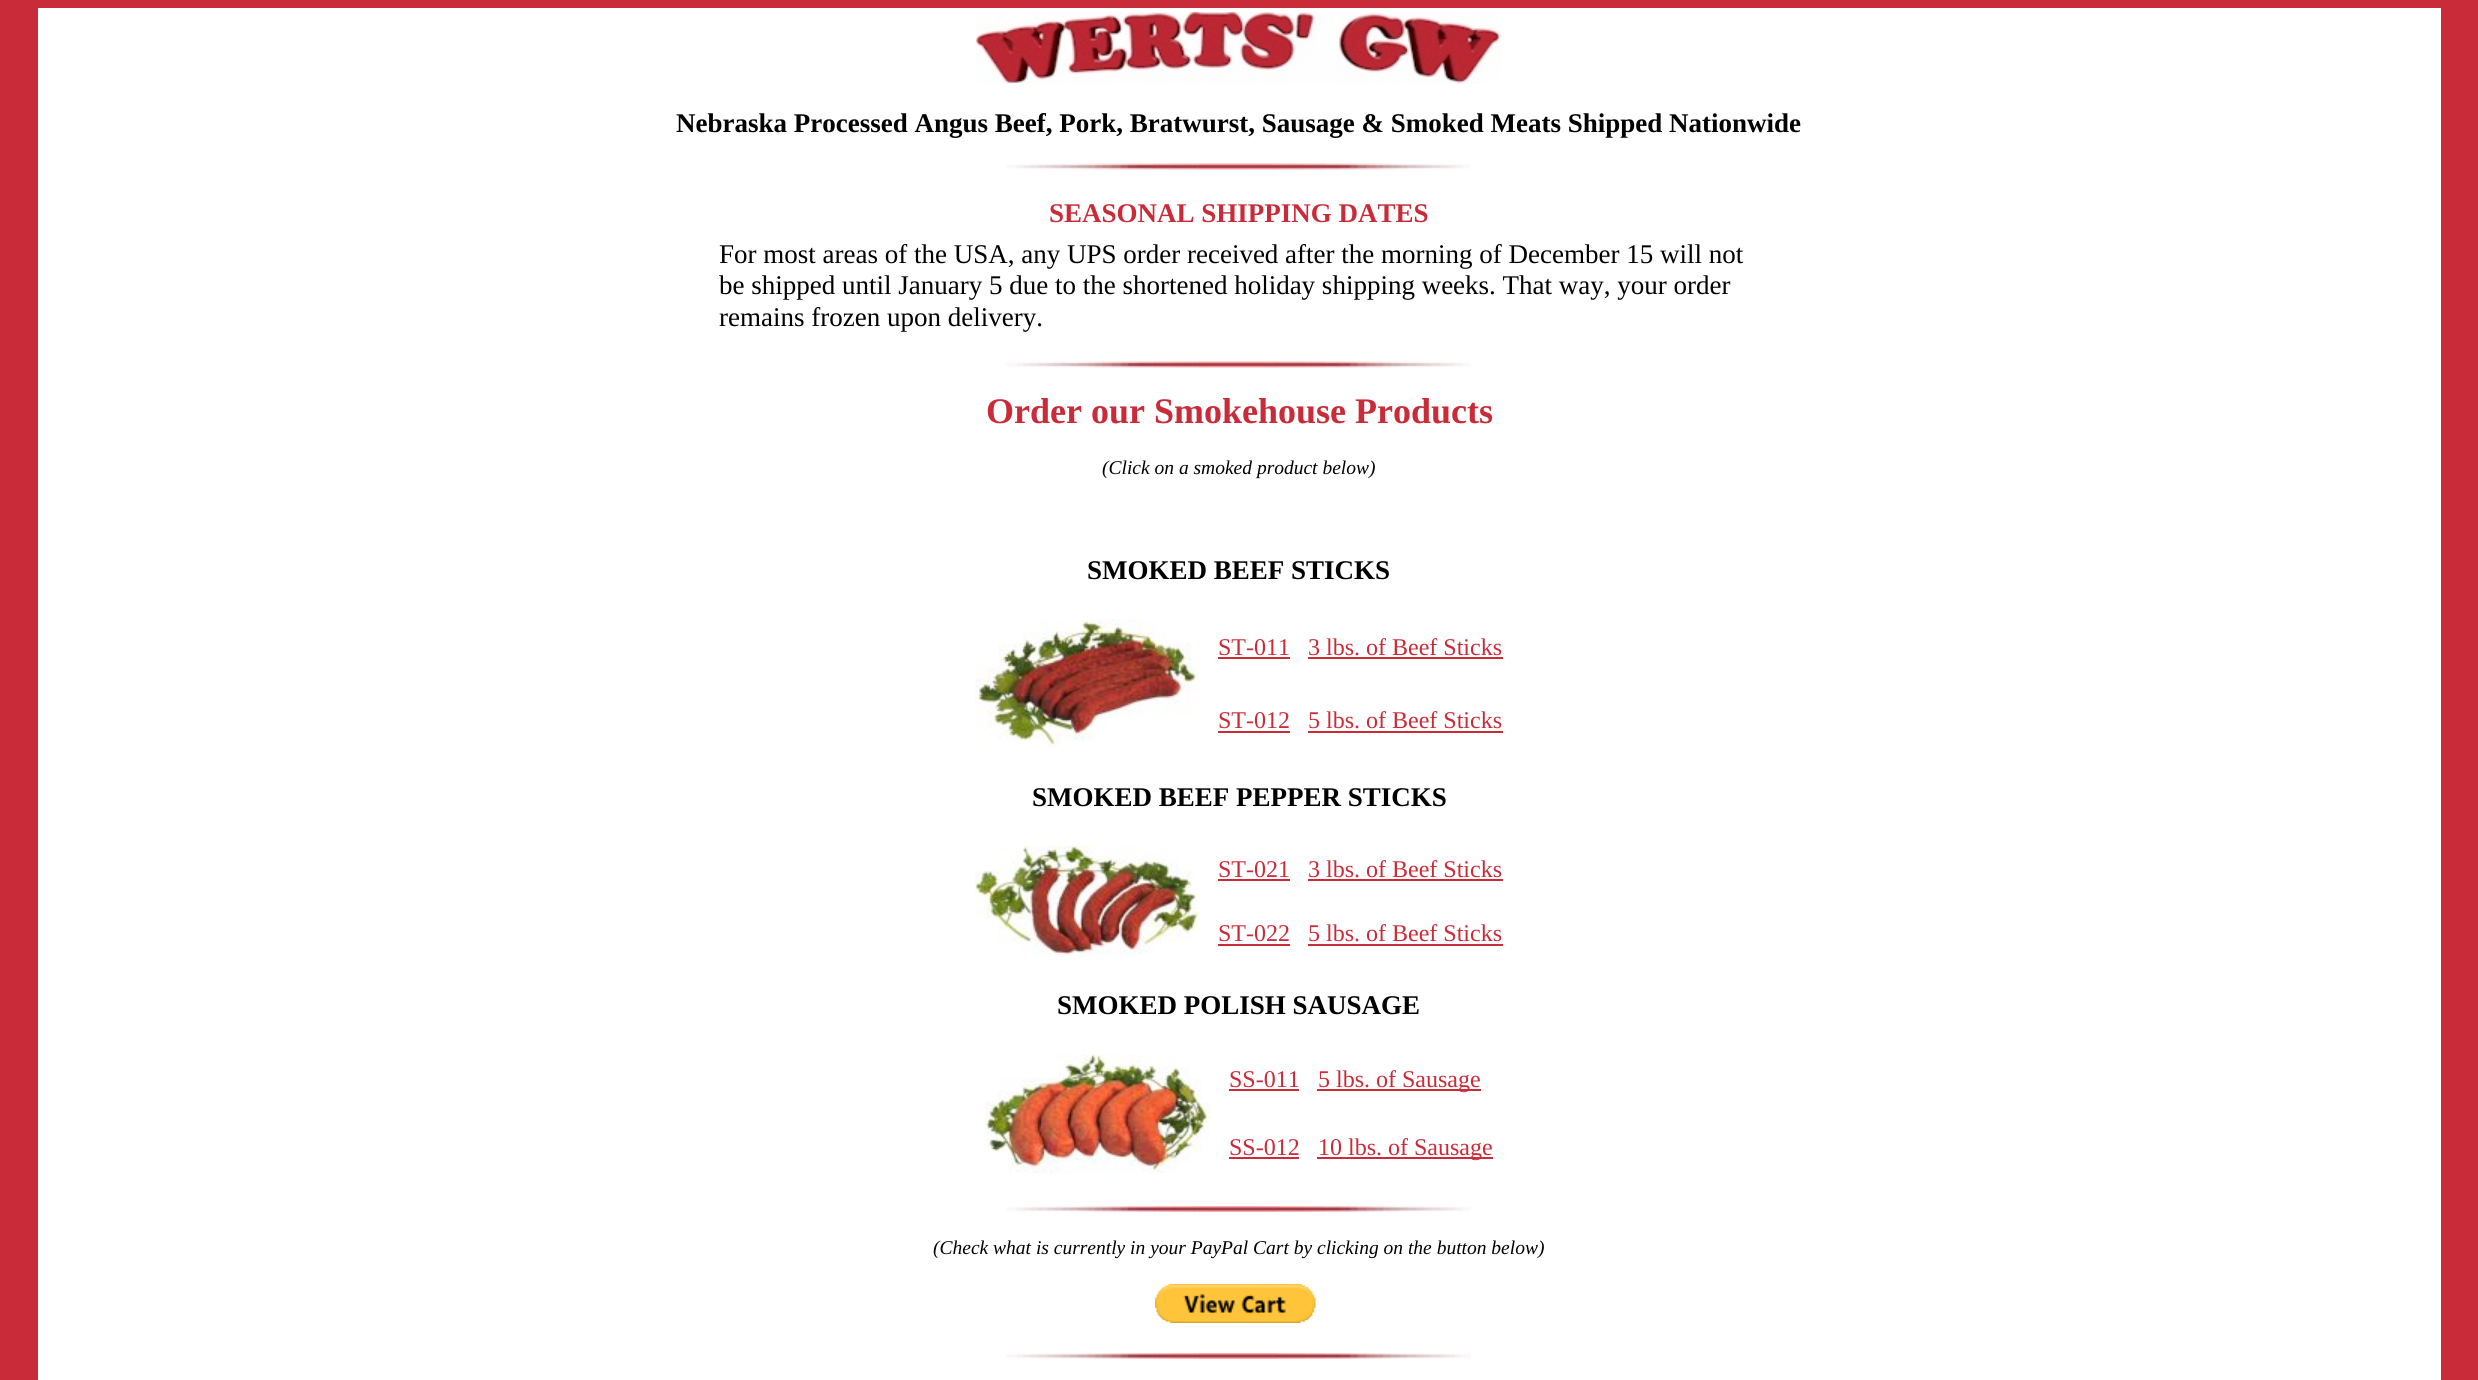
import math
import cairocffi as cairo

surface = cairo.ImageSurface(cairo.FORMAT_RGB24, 2478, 1380)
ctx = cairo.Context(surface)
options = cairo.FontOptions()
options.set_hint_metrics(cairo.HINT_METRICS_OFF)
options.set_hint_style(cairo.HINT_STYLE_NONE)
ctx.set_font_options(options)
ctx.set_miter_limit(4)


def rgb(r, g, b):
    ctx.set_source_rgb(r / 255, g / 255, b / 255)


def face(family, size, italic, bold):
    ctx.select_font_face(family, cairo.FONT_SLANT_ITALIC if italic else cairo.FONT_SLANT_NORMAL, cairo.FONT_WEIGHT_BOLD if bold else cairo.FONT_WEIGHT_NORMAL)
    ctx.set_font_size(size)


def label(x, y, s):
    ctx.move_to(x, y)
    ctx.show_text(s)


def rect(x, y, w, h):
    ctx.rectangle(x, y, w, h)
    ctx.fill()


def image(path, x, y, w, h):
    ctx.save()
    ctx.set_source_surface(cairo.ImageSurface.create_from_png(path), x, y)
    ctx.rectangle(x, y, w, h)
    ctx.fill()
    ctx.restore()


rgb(201, 43, 56)
ctx.paint()
rgb(255, 255, 255)
rect(38, 8, 2403, 1372)
image('image0.png', 976, 12, 526, 72)
face('Liberation Serif', 27, 0, 1)
rgb(0, 0, 0)
label(676, 132, 'Nebraska Processed Angus Beef, Pork, Bratwurst, Sausage & Smoked Meats Shipped Nationwide')
image('image1.png', 1006, 163, 465, 7)
rgb(201, 43, 56)
label(1049, 222, 'SEASONAL SHIPPING DATES')
face('Liberation Serif', 27, 0, 0)
rgb(0, 0, 0)
label(719, 263, 'For most areas of the USA, any UPS order received after the morning of December 15 will not')
label(719, 294, 'be shipped until January 5 due to the shortened holiday shipping weeks. That way, your order')
label(719, 326, 'remains frozen upon delivery.')
image('image1.png', 1006, 361, 465, 7)
face('Liberation Serif', 36, 0, 1)
rgb(201, 43, 56)
label(986, 423, 'Order our Smokehouse Products')
face('Liberation Serif', 19.5, 1, 0)
rgb(0, 0, 0)
label(1102, 474, '(Click on a smoked product below)')
face('Liberation Serif', 27, 0, 1)
label(1087, 579, 'SMOKED BEEF STICKS')
image('image2.png', 975, 619, 225, 130)
face('Liberation Serif', 24, 0, 0)
rgb(201, 43, 56)
label(1218, 655, 'ST-011')
rect(1218, 657, 72, 2)
label(1308, 655, '3 lbs. of Beef Sticks')
rect(1308, 657, 195, 2)
label(1218, 728, 'ST-012')
rect(1218, 731, 72, 2)
label(1308, 728, '5 lbs. of Beef Sticks')
rect(1308, 731, 195, 2)
face('Liberation Serif', 27, 0, 1)
rgb(0, 0, 0)
label(1032, 806, 'SMOKED BEEF PEPPER STICKS')
image('image3.png', 975, 846, 225, 111)
face('Liberation Serif', 24, 0, 0)
rgb(201, 43, 56)
label(1218, 877, 'ST-021')
rect(1218, 879, 72, 2)
label(1308, 877, '3 lbs. of Beef Sticks')
rect(1308, 879, 195, 2)
label(1218, 941, 'ST-022')
rect(1218, 944, 72, 2)
label(1308, 941, '5 lbs. of Beef Sticks')
rect(1308, 944, 195, 2)
face('Liberation Serif', 27, 0, 1)
rgb(0, 0, 0)
label(1057, 1014, 'SMOKED POLISH SAUSAGE')
image('image4.png', 985, 1054, 226, 119)
face('Liberation Serif', 24, 0, 0)
rgb(201, 43, 56)
label(1229, 1087, 'SS-011')
rect(1229, 1089, 70, 2)
rect(1317, 1089, 164, 2)
label(1318, 1087, '5 lbs. of Sausage')
label(1229, 1155, 'SS-012')
rect(1229, 1157, 70, 2)
rect(1317, 1157, 176, 2)
label(1318, 1155, '10 lbs. of Sausage')
image('image5.png', 1006, 1206, 465, 6)
face('Liberation Serif', 19.5, 1, 0)
rgb(0, 0, 0)
label(933, 1254, '(Check what is currently in your PayPal Cart by clicking on the button below)')
image('image6.png', 1155, 1284, 161, 39)
image('image5.png', 1006, 1353, 465, 6)
surface.write_to_png('render.png')
